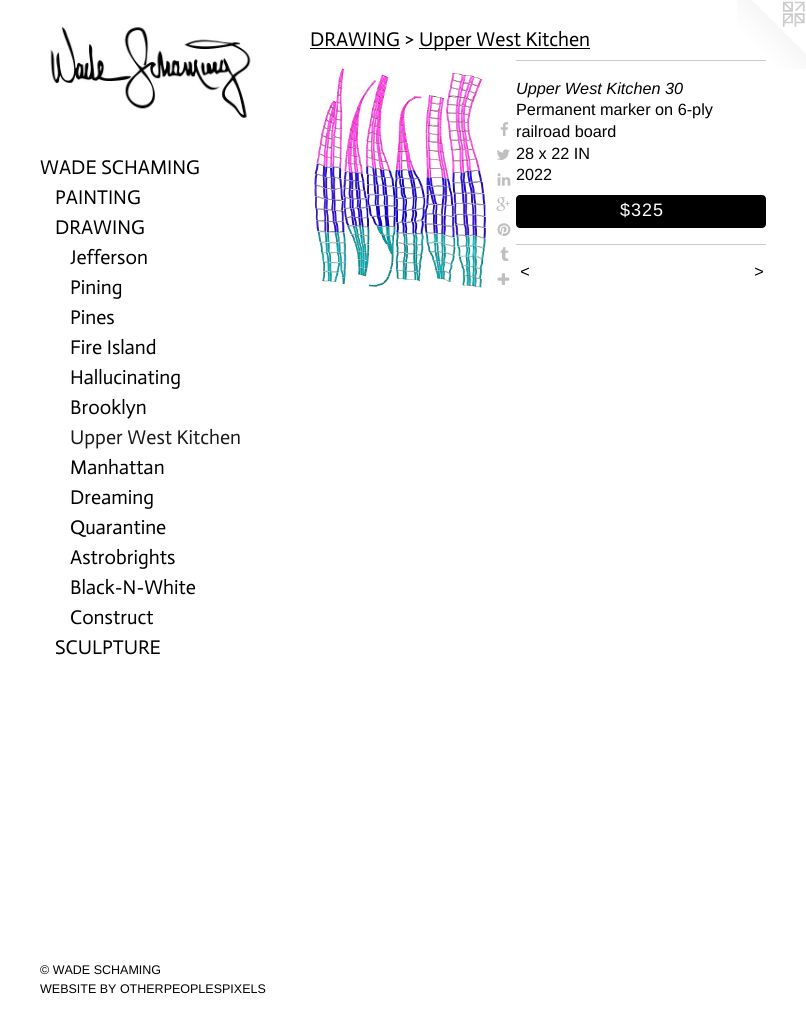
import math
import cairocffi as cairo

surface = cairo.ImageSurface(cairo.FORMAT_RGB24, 806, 1026)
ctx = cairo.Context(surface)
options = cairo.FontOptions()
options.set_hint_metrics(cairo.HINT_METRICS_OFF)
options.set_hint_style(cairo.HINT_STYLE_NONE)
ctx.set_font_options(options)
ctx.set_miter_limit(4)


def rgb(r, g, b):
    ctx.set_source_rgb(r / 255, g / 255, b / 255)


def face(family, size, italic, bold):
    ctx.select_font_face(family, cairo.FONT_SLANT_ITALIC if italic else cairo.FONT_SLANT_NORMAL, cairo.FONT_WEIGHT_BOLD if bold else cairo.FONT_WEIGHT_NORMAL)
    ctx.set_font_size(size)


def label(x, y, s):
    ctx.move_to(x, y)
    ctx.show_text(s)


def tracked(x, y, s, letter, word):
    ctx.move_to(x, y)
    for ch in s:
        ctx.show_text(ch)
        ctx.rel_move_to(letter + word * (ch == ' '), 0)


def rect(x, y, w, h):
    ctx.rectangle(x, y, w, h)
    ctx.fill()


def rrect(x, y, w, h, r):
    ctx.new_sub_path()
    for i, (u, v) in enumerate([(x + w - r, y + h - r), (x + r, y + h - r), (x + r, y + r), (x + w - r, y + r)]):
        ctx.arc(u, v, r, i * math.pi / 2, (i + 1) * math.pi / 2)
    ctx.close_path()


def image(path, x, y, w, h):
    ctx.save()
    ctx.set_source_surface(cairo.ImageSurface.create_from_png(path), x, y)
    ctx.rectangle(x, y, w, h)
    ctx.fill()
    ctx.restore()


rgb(255, 255, 255)
ctx.paint()
image('image0.png', 50, 27, 201, 91)
face('Actor', 20, 0, 0)
rgb(0, 0, 0)
label(40, 174, 'WADE SCHAMING')
label(55, 204, 'PAINTING')
label(55, 234, 'DRAWING')
label(70, 264, 'Jefferson')
label(70, 294, 'Pining')
label(70, 324, 'Pines')
label(70, 354, 'Fire Island')
label(70, 384, 'Hallucinating')
label(70, 414, 'Brooklyn')
rgb(26, 26, 26)
label(70, 444, 'Upper West Kitchen')
rgb(0, 0, 0)
label(70, 474, 'Manhattan')
label(70, 504, 'Dreaming')
label(70, 534, 'Quarantine')
label(70, 564, 'Astrobrights')
label(70, 594, 'Black-N-White')
label(70, 624, 'Construct')
label(55, 654, 'SCULPTURE')
face('Liberation Sans', 12.5, 0, 0)
label(40, 974, '© WADE SCHAMING')
label(40, 993, 'WEBSITE BY OTHERPEOPLESPIXELS')
face('Actor', 20, 0, 0)
label(310, 46, 'DRAWING >')
rect(310, 48, 90, 1)
rect(419, 48, 171, 1)
label(419, 46, 'Upper West Kitchen')
image('image1.png', 311, 65, 175, 223)
image('image2.png', 500, 122, 8, 14)
image('image3.png', 497, 149, 13, 11)
image('image4.png', 497, 173, 14, 13)
image('image5.png', 496, 197, 14, 14)
image('image6.png', 497, 223, 14, 13)
image('image7.png', 500, 247, 9, 14)
image('image8.png', 497, 273, 13, 12)
image('image9.png', 737, 0, 69, 69)
rgb(204, 204, 204)
rect(516, 60, 250, 1)
face('Liberation Sans', 16.25, 1, 0)
rgb(0, 0, 0)
label(516, 94, 'Upper West Kitchen 30')
face('Liberation Sans', 16.25, 0, 0)
label(516, 115, 'Permanent marker on 6-ply')
label(516, 137, 'railroad board')
label(516, 159, '28 x 22 IN')
label(516, 180, '2022')
rrect(516, 195, 250, 33, 4)
ctx.fill()
face('Liberation Sans', 18, 0, 0)
rgb(255, 255, 255)
tracked(620, 216, '$325', 1, 0)
rgb(204, 204, 204)
rect(516, 244, 250, 1)
face('Liberation Sans', 16.25, 1, 0)
rgb(0, 0, 0)
tracked(520, 277, '<', 1, 0)
tracked(754, 277, '>', 1, 0)
surface.write_to_png('render.png')
